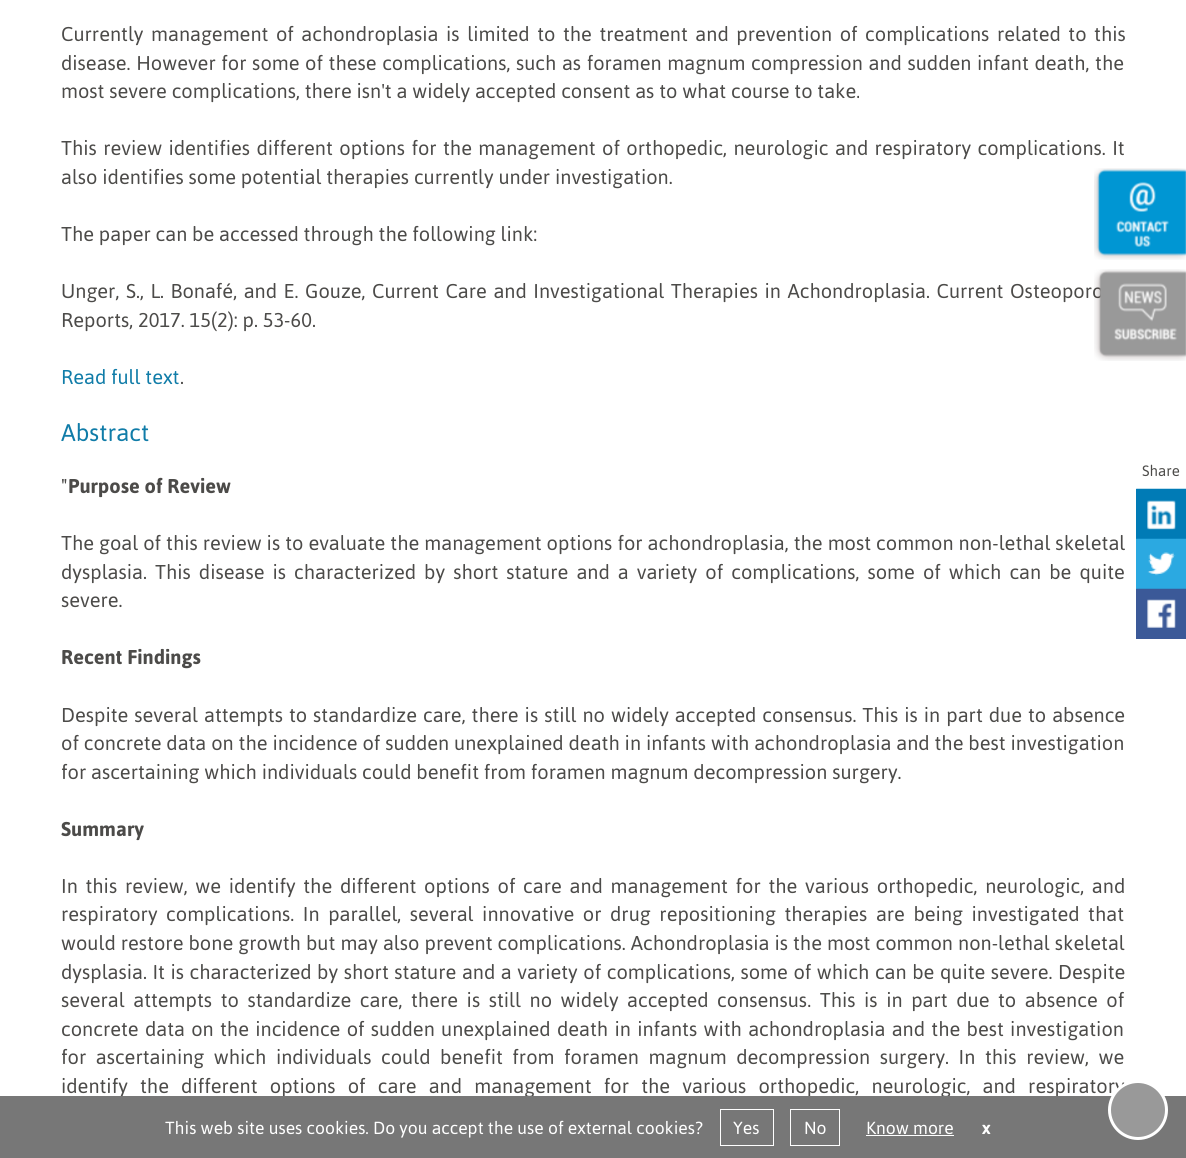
import math
import cairocffi as cairo

surface = cairo.ImageSurface(cairo.FORMAT_RGB24, 1186, 1158)
ctx = cairo.Context(surface)
options = cairo.FontOptions()
options.set_hint_metrics(cairo.HINT_METRICS_OFF)
options.set_hint_style(cairo.HINT_STYLE_NONE)
ctx.set_font_options(options)
ctx.set_miter_limit(4)


def rgb(r, g, b):
    ctx.set_source_rgb(r / 255, g / 255, b / 255)


def face(family, size, italic, bold):
    ctx.select_font_face(family, cairo.FONT_SLANT_ITALIC if italic else cairo.FONT_SLANT_NORMAL, cairo.FONT_WEIGHT_BOLD if bold else cairo.FONT_WEIGHT_NORMAL)
    ctx.set_font_size(size)


def label(x, y, s):
    ctx.move_to(x, y)
    ctx.show_text(s)


def tracked(x, y, s, letter, word):
    ctx.move_to(x, y)
    for ch in s:
        ctx.show_text(ch)
        ctx.rel_move_to(letter + word * (ch == ' '), 0)


def rect(x, y, w, h):
    ctx.rectangle(x, y, w, h)
    ctx.fill()


def image(path, x, y, w, h):
    ctx.save()
    ctx.set_source_surface(cairo.ImageSurface.create_from_png(path), x, y)
    ctx.rectangle(x, y, w, h)
    ctx.fill()
    ctx.restore()


rgb(255, 255, 255)
ctx.paint()
face('Asap', 20, 0, 0)
rgb(76, 75, 73)
tracked(61, 41, 'Currently management of achondroplasia is limited to the treatment and prevention of complications related to this', 0, 2.75)
tracked(61, 70, 'disease. However for some of these complications, such as foramen magnum compression and sudden infant death, the', 0, 0.8)
label(61, 98, 'most severe complications, there isn\'t a widely accepted consent as to what course to take.')
tracked(61, 155, 'This review identifies different options for the management of orthopedic, neurologic and respiratory complications. It', 0, 1.6)
label(61, 184, 'also identifies some potential therapies currently under investigation.')
label(61, 241, 'The paper can be accessed through the following link:')
tracked(61, 298, 'Unger, S., L. Bonafé, and E. Gouze, Current Care and Investigational Therapies in Achondroplasia. Current Osteoporo', 0, 1.75)
label(61, 327, 'Reports, 2017. 15(2): p. 53-60.')
rgb(16, 124, 168)
label(61, 384, 'Read full text')
rgb(76, 75, 73)
label(180, 384, '.')
face('Asap', 24, 0, 0)
rgb(16, 124, 168)
label(61, 441, 'Abstract')
face('Asap', 20, 0, 0)
rgb(76, 75, 73)
label(61, 493, '"')
face('Asap', 20, 0, 1)
label(68, 493, 'Purpose of Review')
face('Asap', 20, 0, 0)
tracked(61, 550, 'The goal of this review is to evaluate the management options for achondroplasia, the most common non-lethal skeletal', 0, 0.2)
tracked(61, 579, 'dysplasia. This disease is characterized by short stature and a variety of complications, some of which can be quite', 0, 3.25)
label(61, 607, 'severe.')
face('Asap', 20, 0, 1)
label(61, 664, 'Recent Findings')
face('Asap', 20, 0, 0)
tracked(61, 722, 'Despite several attempts to standardize care, there is still no widely accepted consensus. This is in part due to absence', 0, 1.2)
tracked(61, 750, 'of concrete data on the incidence of sudden unexplained death in infants with achondroplasia and the best investigation', 0, 0.1)
label(61, 779, 'for ascertaining which individuals could benefit from foramen magnum decompression surgery.')
face('Asap', 20, 0, 1)
label(61, 836, 'Summary')
face('Asap', 20, 0, 0)
tracked(61, 893, 'In this review, we identify the different options of care and management for the various orthopedic, neurologic, and', 0, 2.9)
tracked(61, 921, 'respiratory complications. In parallel, several innovative or drug repositioning therapies are being investigated that', 0, 3.75)
tracked(61, 950, 'would restore bone growth but may also prevent complications. Achondroplasia is the most common non-lethal skeletal', 0, 0.25)
tracked(61, 979, 'dysplasia. It is characterized by short stature and a variety of complications, some of which can be quite severe. Despite', 0, 0.75)
tracked(61, 1007, 'several attempts to standardize care, there is still no widely accepted consensus. This is in part due to absence of', 0, 3.75)
tracked(61, 1036, 'concrete data on the incidence of sudden unexplained death in infants with achondroplasia and the best investigation', 0, 1.5)
tracked(61, 1064, 'for ascertaining which individuals could benefit from foramen magnum decompression surgery. In this review, we', 0, 4.75)
tracked(61, 1093, 'identify the different options of care and management for the various orthopedic, neurologic, and respiratory', 0, 7.4)
face('Asap', 15, 0, 0)
label(1142, 476, 'Share')
rgb(0, 123, 182)
rect(1136, 489, 50, 50)
image('image0.png', 1136, 488, 50, 42)
rgb(43, 169, 225)
rect(1136, 539, 50, 50)
image('image1.png', 1136, 538, 50, 38)
rgb(59, 89, 152)
rect(1136, 589, 50, 50)
image('image2.png', 1136, 588, 50, 40)
image('image3.png', 1094, 168, 92, 92)
image('image4.png', 1094, 269, 92, 92)
rgb(119, 119, 119)
rect(0, 1096, 1186, 62)
face('Asap', 17.5, 0, 0)
rgb(255, 255, 255)
label(165, 1134, 'This web site uses cookies. Do you accept the use of external cookies?')
ctx.rectangle(720.5, 1109.5, 53, 36)
ctx.set_line_width(1)
ctx.stroke()
label(733, 1134, 'Yes')
ctx.rectangle(790.5, 1109.5, 49, 36)
ctx.stroke()
label(804, 1134, 'No')
label(866, 1134, 'Know more')
rect(866, 1135, 88, 1)
face('Asap', 17.5, 0, 1)
label(982, 1134, 'x')
rgb(153, 153, 153)
ctx.new_path()
ctx.arc(1138, 1110, 28.5, 0, 2 * math.pi)
ctx.fill_preserve()
rgb(255, 255, 255)
ctx.set_line_width(3)
ctx.stroke()
surface.write_to_png('render.png')
